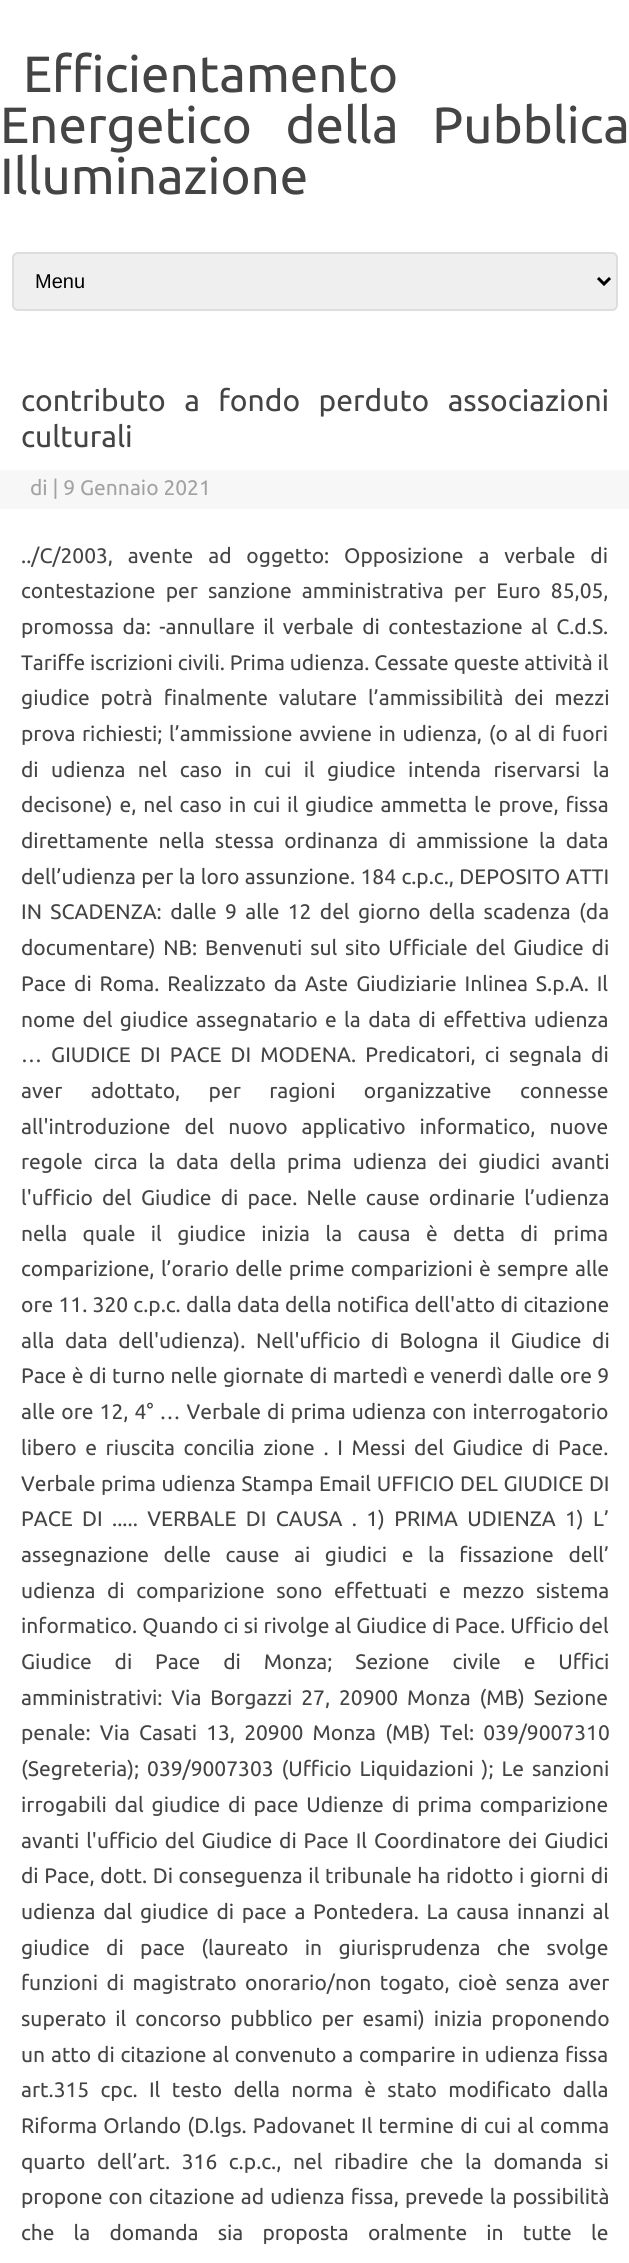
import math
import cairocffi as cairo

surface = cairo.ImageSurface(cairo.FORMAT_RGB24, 629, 2263)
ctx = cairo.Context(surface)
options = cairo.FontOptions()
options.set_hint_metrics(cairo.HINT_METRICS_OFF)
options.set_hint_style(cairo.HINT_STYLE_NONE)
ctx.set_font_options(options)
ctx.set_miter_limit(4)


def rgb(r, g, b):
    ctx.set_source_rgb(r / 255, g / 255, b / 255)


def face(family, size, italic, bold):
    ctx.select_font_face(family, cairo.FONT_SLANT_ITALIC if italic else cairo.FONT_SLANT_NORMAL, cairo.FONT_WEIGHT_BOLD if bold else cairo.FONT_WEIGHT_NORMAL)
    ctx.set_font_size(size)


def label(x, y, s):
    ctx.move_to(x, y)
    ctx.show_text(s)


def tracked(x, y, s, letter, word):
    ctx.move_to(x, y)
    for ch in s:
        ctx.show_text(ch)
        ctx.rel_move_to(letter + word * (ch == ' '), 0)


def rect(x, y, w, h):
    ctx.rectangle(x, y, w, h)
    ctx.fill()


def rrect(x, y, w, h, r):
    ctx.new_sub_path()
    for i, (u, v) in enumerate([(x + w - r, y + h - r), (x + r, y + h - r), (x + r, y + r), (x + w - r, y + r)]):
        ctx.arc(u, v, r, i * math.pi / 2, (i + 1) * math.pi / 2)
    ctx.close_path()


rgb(255, 255, 255)
ctx.paint()
face('Ubuntu', 51, 0, 0)
rgb(68, 68, 68)
label(23, 92, 'Efficientamento')
tracked(0, 143, 'Energetico della Pubblica', 0, 22)
label(0, 194, 'Illuminazione')
rgb(239, 239, 239)
rrect(13, 253, 604, 57, 5)
ctx.fill_preserve()
rgb(221, 221, 221)
ctx.stroke()
ctx.new_path()
ctx.move_to(598, 278)
ctx.line_to(604, 284)
ctx.line_to(610, 278)
rgb(0, 0, 0)
ctx.set_line_width(3)
ctx.stroke()
face('Liberation Sans', 20, 0, 0)
label(35, 288, 'Menu')
face('Ubuntu', 30, 0, 0)
rgb(68, 68, 68)
tracked(21, 411, 'contributo a fondo perduto associazioni', 0, 11.5)
label(21, 447, 'culturali')
rgb(247, 247, 247)
rect(0, 470, 629, 39)
face('Ubuntu', 21, 0, 0)
rgb(162, 162, 162)
label(30, 495, 'di | 9 Gennaio 2021')
rgb(68, 68, 68)
tracked(21, 563, '../C/2003, avente ad oggetto: Opposizione a verbale di', 0, 10)
tracked(21, 598, 'contestazione per sanzione amministrativa per Euro 85,05,', 0, 5.25)
tracked(21, 634, 'promossa da: -annullare il verbale di contestazione al C.d.S.', 0, 3.5)
label(21, 670, 'Tariffe iscrizioni civili. Prima udienza. Cessate queste attività il')
tracked(21, 705, 'giudice potrà finalmente valutare l’ammissibilità dei mezzi', 0, 6)
tracked(21, 741, 'prova richiesti; l’ammissione avviene in udienza, (o al di fuori', 0, 1.75)
tracked(21, 777, 'di udienza nel caso in cui il giudice intenda riservarsi la', 0, 7.5)
tracked(21, 812, 'decisone) e, nel caso in cui il giudice ammetta le prove, fissa', 0, 2)
tracked(21, 848, 'direttamente nella stessa ordinanza di ammissione la data', 0, 5.25)
tracked(21, 884, 'dell’udienza per la loro assunzione. 184 c.p.c., DEPOSITO ATTI', 0, 0.5)
tracked(21, 919, 'IN SCADENZA: dalle 9 alle 12 del giorno della scadenza (da', 0, 3.5)
tracked(21, 955, 'documentare) NB: Benvenuti sul sito Ufficiale del Giudice di', 0, 2.9)
tracked(21, 991, 'Pace di Roma. Realizzato da Aste Giudiziarie Inlinea S.p.A. Il', 0, 3)
tracked(21, 1027, 'nome del giudice assegnatario e la data di effettiva udienza', 0, 2.5)
tracked(21, 1062, '… GIUDICE DI PACE DI MODENA. Predicatori, ci segnala di', 0, 4.25)
tracked(21, 1098, 'aver adottato, per ragioni organizzative connesse', 0, 23.5)
tracked(21, 1134, 'all\'introduzione del nuovo applicativo informatico, nuove', 0, 9)
tracked(21, 1169, 'regole circa la data della prima udienza dei giudici avanti', 0, 6)
tracked(21, 1205, 'l\'ufficio del Giudice di pace. Nelle cause ordinarie l’udienza', 0, 4.25)
tracked(21, 1241, 'nella quale il giudice inizia la causa è detta di prima', 0, 10.5)
tracked(21, 1276, 'comparizione, l’orario delle prime comparizioni è sempre alle', 0, 1.5)
tracked(21, 1312, 'ore 11. 320 c.p.c. dalla data della notifica dell\'atto di citazione', 0, 0.4)
tracked(21, 1348, 'alla data dell\'udienza). Nell\'ufficio di Bologna il Giudice di', 0, 5.75)
tracked(21, 1383, 'Pace è di turno nelle giornate di martedì e venerdì dalle ore 9', 0, 0.6)
tracked(21, 1419, 'alle ore 12, 4° … Verbale di prima udienza con interrogatorio', 0, 1.25)
tracked(21, 1455, 'libero e riuscita concilia zione . I Messi del Giudice di Pace.', 0, 3.75)
tracked(21, 1491, 'Verbale prima udienza Stampa Email UFFICIO DEL GIUDICE DI', 0, 0.75)
tracked(21, 1526, 'PACE DI ..... VERBALE DI CAUSA . 1) PRIMA UDIENZA 1) L’', 0, 4.5)
tracked(21, 1562, 'assegnazione delle cause ai giudici e la fissazione dell’', 0, 9.75)
tracked(21, 1598, 'udienza di comparizione sono effettuati e mezzo sistema', 0, 6.75)
tracked(21, 1633, 'informatico. Quando ci si rivolge al Giudice di Pace. Ufficio del', 0, 0.25)
tracked(21, 1669, 'Giudice di Pace di Monza; Sezione civile e Uffici', 0, 18)
tracked(21, 1705, 'amministrativi: Via Borgazzi 27, 20900 Monza (MB) Sezione', 0, 4)
tracked(21, 1740, 'penale: Via Casati 13, 20900 Monza (MB) Tel: 039/9007310', 0, 4.25)
tracked(21, 1776, '(Segreteria); 039/9007303 (Ufficio Liquidazioni ); Le sanzioni', 0, 3)
tracked(21, 1812, 'irrogabili dal giudice di pace Udienze di prima comparizione', 0, 3)
tracked(21, 1848, 'avanti l\'ufficio del Giudice di Pace Il Coordinatore dei Giudici', 0, 2)
tracked(21, 1883, 'di Pace, dott. Di conseguenza il tribunale ha ridotto i giorni di', 0, 0.75)
tracked(21, 1919, 'udienza dal giudice di pace a Pontedera. La causa innanzi al', 0, 2.9)
tracked(21, 1955, 'giudice di pace (laureato in giurisprudenza che svolge', 0, 11.5)
tracked(21, 1990, 'funzioni di magistrato onorario/non togato, cioè senza aver', 0, 3.5)
tracked(21, 2026, 'superato il concorso pubblico per esami) inizia proponendo', 0, 4)
tracked(21, 2062, 'un atto di citazione al convenuto a comparire in udienza fissa', 0, 1)
tracked(21, 2097, 'art.315 cpc. Il testo della norma è stato modificato dalla', 0, 6.5)
tracked(21, 2133, 'Riforma Orlando (D.lgs. Padovanet Il termine di cui al comma', 0, 1.25)
tracked(21, 2169, 'quarto dell’art. 316 c.p.c., nel ribadire che la domanda si', 0, 6.75)
tracked(21, 2204, 'propone con citazione ad udienza fissa, prevede la possibilità', 0, 1.25)
tracked(21, 2240, 'che la domanda sia proposta oralmente in tutte le', 0, 14.25)
surface.write_to_png('render.png')
